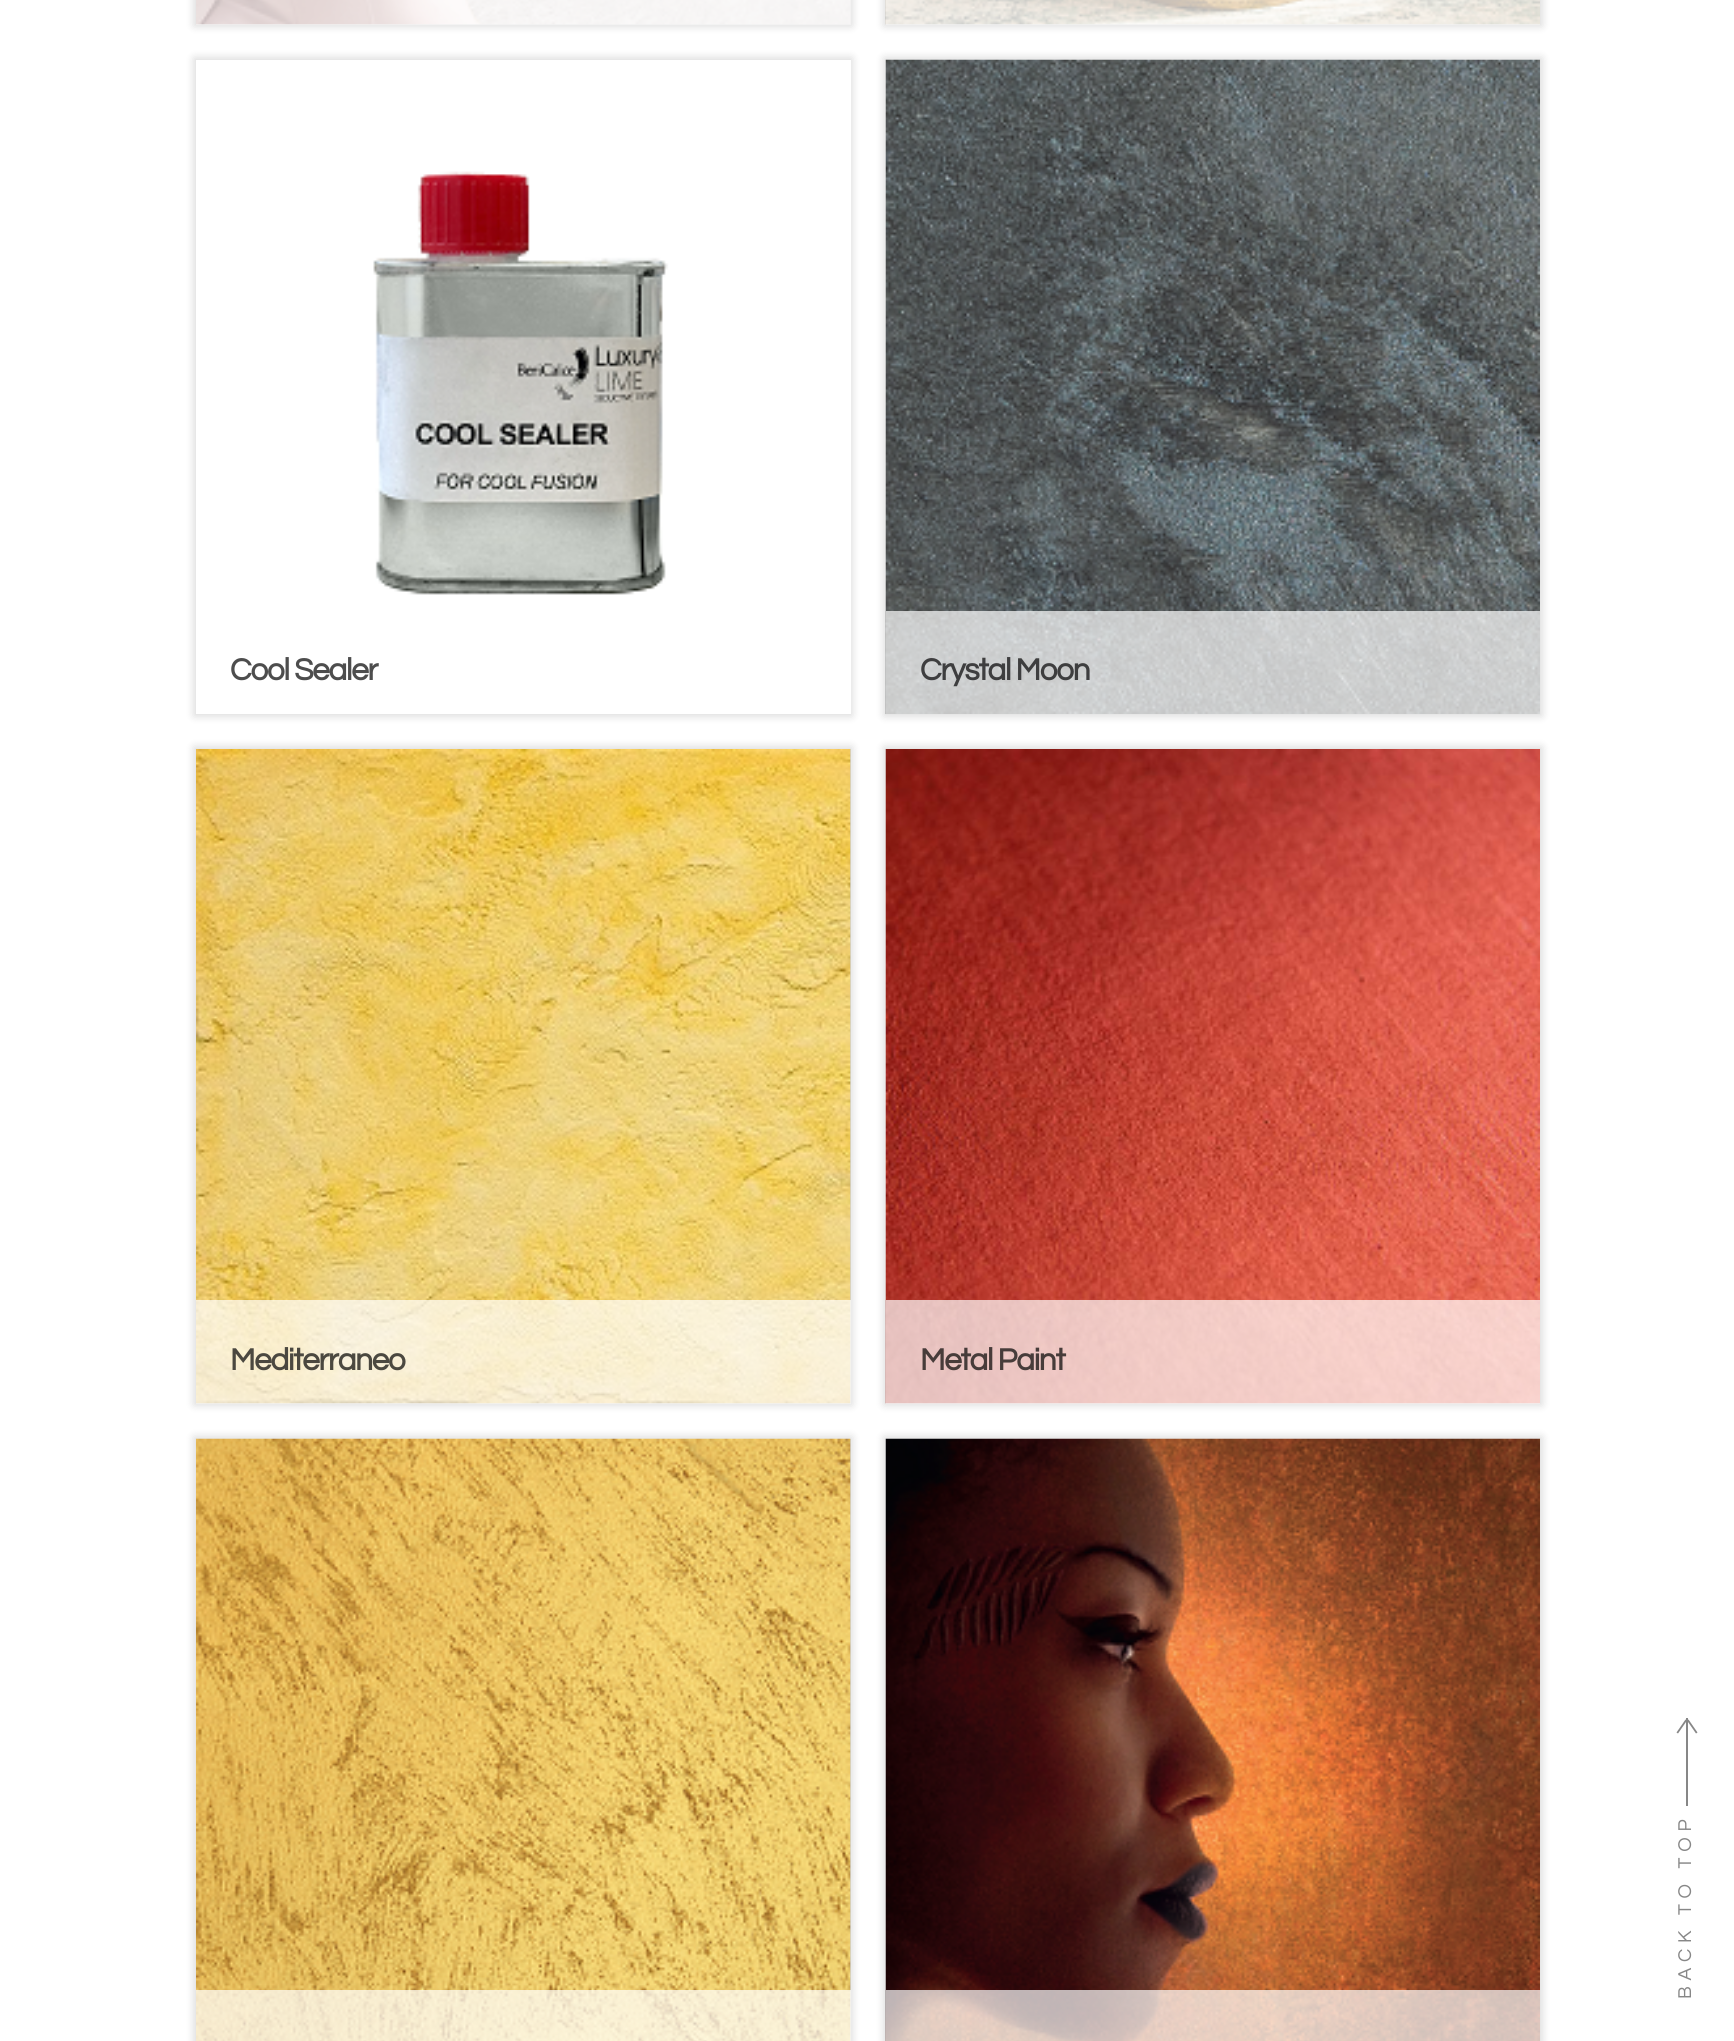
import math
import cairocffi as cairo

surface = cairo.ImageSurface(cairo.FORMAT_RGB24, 1734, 2041)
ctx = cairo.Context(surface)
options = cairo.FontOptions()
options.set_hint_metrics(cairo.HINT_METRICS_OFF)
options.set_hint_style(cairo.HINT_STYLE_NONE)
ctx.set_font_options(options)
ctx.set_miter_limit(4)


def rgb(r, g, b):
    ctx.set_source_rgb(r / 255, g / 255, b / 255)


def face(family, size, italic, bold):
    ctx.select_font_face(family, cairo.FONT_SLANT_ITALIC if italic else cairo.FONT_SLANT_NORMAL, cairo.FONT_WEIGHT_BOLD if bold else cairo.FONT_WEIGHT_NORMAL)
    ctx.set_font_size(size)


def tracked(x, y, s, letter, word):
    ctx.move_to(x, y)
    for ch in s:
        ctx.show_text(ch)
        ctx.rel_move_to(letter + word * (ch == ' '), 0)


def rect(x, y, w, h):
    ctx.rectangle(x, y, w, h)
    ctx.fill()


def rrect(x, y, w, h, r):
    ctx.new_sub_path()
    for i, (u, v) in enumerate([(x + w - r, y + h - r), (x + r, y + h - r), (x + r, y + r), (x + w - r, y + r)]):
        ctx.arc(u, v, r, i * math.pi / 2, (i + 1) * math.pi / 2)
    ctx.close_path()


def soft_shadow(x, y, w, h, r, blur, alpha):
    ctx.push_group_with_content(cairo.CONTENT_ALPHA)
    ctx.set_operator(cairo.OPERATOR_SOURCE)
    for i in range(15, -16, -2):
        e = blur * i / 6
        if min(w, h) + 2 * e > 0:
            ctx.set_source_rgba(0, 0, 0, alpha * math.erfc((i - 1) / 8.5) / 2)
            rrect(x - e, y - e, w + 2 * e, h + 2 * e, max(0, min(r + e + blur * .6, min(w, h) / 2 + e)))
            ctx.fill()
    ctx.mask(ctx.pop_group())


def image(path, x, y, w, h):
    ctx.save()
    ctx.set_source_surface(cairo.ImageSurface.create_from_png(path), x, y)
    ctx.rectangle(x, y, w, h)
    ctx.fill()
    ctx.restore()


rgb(255, 255, 255)
ctx.paint()
rgb(0, 0, 0)
soft_shadow(194, -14, 658, 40, 0, 4.5, 0.15)
ctx.save()
ctx.rectangle(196, 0, 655, 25)
ctx.clip()
soft_shadow(194, -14, 658, 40, 0, 4.5, 0.15)
ctx.restore()
image('image0.png', 196, 0, 655, 25)
ctx.set_source_rgba(1, 1, 1, 0.7)
rect(196, 0, 655, 25)
rgb(0, 0, 0)
soft_shadow(884, -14, 658, 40, 0, 4.5, 0.15)
ctx.save()
ctx.rectangle(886, 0, 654, 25)
ctx.clip()
soft_shadow(884, -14, 658, 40, 0, 4.5, 0.15)
ctx.restore()
image('image1.png', 885, 0, 655, 25)
ctx.set_source_rgba(1, 1, 1, 0.7)
rect(886, 0, 654, 25)
ctx.save()
ctx.set_fill_rule(cairo.FILL_RULE_EVEN_ODD)
ctx.new_path()
ctx.move_to(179, 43)
ctx.line_to(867, 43)
ctx.line_to(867, 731)
ctx.line_to(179, 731)
ctx.close_path()
ctx.move_to(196, 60)
ctx.line_to(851, 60)
ctx.line_to(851, 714)
ctx.line_to(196, 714)
ctx.close_path()
ctx.clip()
rgb(0, 0, 0)
soft_shadow(194, 58, 658, 658, 0, 4.5, 0.15)
ctx.restore()
ctx.save()
ctx.rectangle(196, 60, 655, 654)
ctx.clip()
ctx.set_fill_rule(cairo.FILL_RULE_EVEN_ODD)
ctx.new_path()
ctx.move_to(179, 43)
ctx.line_to(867, 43)
ctx.line_to(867, 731)
ctx.line_to(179, 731)
ctx.close_path()
ctx.move_to(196, 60)
ctx.line_to(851, 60)
ctx.line_to(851, 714)
ctx.line_to(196, 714)
ctx.close_path()
ctx.clip()
rgb(0, 0, 0)
soft_shadow(194, 58, 658, 658, 0, 4.5, 0.15)
ctx.restore()
image('image2.png', 373, 60, 478, 654)
rect(850, 611, 1, 103)
face('Questrial', 31.5, 0, 1)
rgb(77, 77, 77)
tracked(230, 680, 'Cool Sealer', -1.25, 0)
rgb(0, 0, 0)
soft_shadow(884, 58, 658, 658, 0, 4.5, 0.15)
image('image3.png', 885, 59, 655, 655)
ctx.set_source_rgba(1, 1, 1, 0.7)
rect(886, 611, 654, 103)
rgb(62, 62, 63)
tracked(920, 680, 'Crystal Moon', -1.25, 0)
rgb(0, 0, 0)
soft_shadow(194, 747, 658, 658, 0, 4.5, 0.15)
ctx.save()
ctx.rectangle(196, 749, 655, 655)
ctx.clip()
soft_shadow(194, 747, 658, 658, 0, 4.5, 0.15)
ctx.restore()
image('image4.png', 196, 749, 655, 655)
ctx.set_source_rgba(1, 1, 1, 0.7)
rect(196, 1300, 655, 104)
rgb(75, 72, 64)
tracked(230, 1370, 'Mediterraneo', -1.25, 0)
rgb(0, 0, 0)
soft_shadow(884, 747, 658, 658, 0, 4.5, 0.15)
ctx.save()
ctx.rectangle(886, 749, 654, 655)
ctx.clip()
soft_shadow(884, 747, 658, 658, 0, 4.5, 0.15)
ctx.restore()
image('image5.png', 885, 749, 655, 655)
ctx.set_source_rgba(1, 1, 1, 0.7)
rect(886, 1300, 654, 104)
rgb(71, 60, 58)
tracked(920, 1370, 'Metal Paint', -1.25, 0)
rgb(0, 0, 0)
soft_shadow(194, 1437, 658, 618, 0, 4.5, 0.15)
ctx.save()
ctx.rectangle(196, 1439, 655, 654)
ctx.clip()
soft_shadow(194, 1437, 658, 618, 0, 4.5, 0.15)
ctx.restore()
image('image6.png', 196, 1438, 655, 603)
ctx.set_source_rgba(1, 1, 1, 0.7)
rect(196, 1990, 655, 51)
rgb(0, 0, 0)
soft_shadow(884, 1437, 658, 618, 0, 4.5, 0.15)
image('image7.png', 885, 1438, 655, 603)
ctx.set_source_rgba(1, 1, 1, 0.7)
rect(886, 1990, 654, 51)
rgb(135, 135, 135)
rect(1686, 1718, 2, 88)
ctx.new_path()
ctx.move_to(1696, 1733.5)
ctx.line_to(1687, 1720.5)
ctx.line_to(1688.5, 1719.5)
ctx.line_to(1697.5, 1732.5)
ctx.close_path()
ctx.move_to(1676.5, 1732.5)
ctx.line_to(1685.5, 1719.5)
ctx.line_to(1687, 1720.5)
ctx.line_to(1678, 1733.5)
ctx.close_path()
ctx.fill()
face('Questrial', 19.25, 0, 0)
ctx.save()
ctx.translate(1691, 1999)
ctx.rotate(-90 * math.pi / 180)
tracked(0, 0, 'BACK TO TOP', 5.75, 0)
ctx.restore()
surface.write_to_png('render.png')
